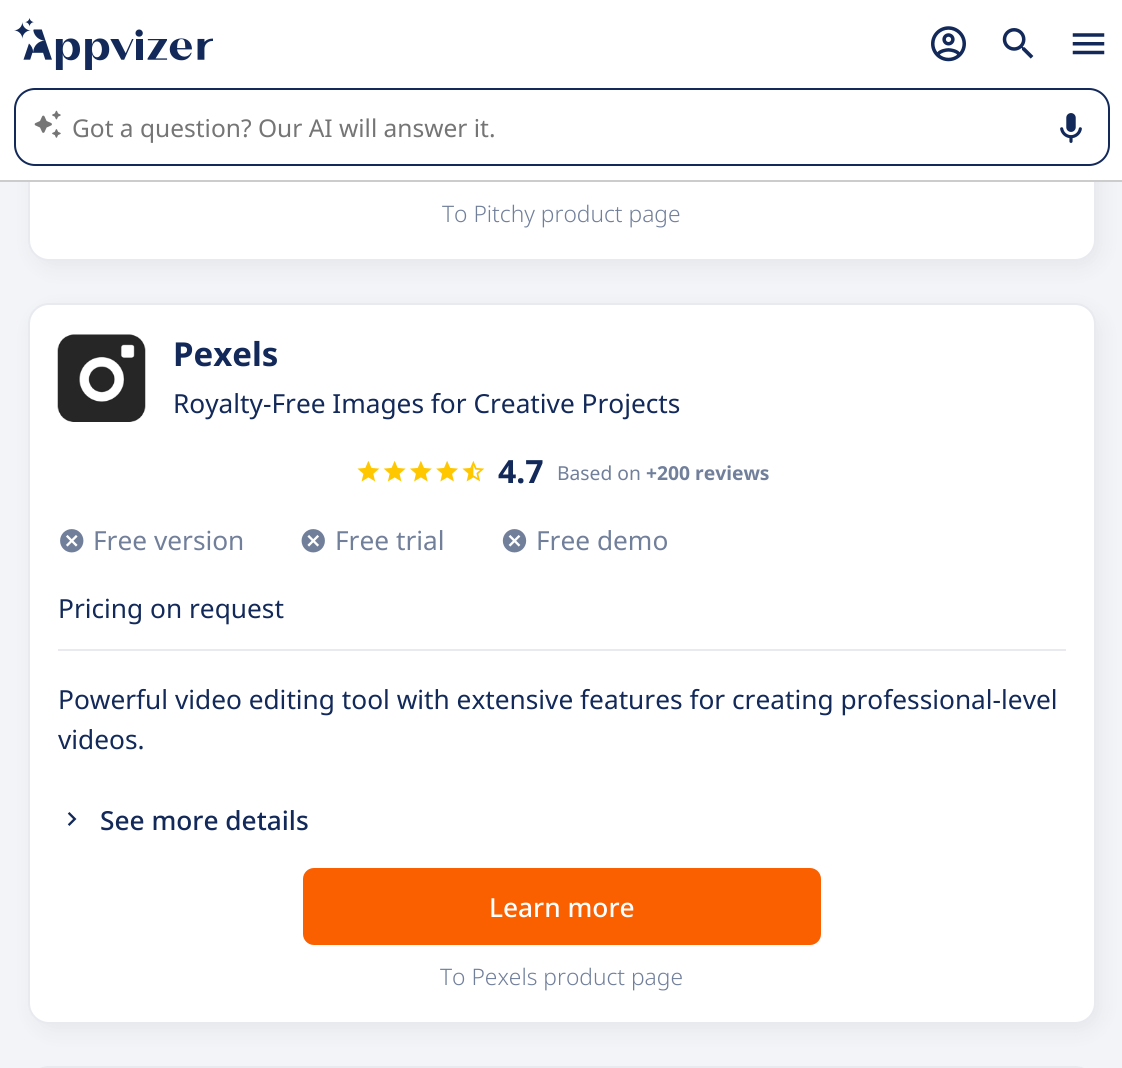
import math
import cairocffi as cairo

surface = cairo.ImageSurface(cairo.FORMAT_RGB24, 1122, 1068)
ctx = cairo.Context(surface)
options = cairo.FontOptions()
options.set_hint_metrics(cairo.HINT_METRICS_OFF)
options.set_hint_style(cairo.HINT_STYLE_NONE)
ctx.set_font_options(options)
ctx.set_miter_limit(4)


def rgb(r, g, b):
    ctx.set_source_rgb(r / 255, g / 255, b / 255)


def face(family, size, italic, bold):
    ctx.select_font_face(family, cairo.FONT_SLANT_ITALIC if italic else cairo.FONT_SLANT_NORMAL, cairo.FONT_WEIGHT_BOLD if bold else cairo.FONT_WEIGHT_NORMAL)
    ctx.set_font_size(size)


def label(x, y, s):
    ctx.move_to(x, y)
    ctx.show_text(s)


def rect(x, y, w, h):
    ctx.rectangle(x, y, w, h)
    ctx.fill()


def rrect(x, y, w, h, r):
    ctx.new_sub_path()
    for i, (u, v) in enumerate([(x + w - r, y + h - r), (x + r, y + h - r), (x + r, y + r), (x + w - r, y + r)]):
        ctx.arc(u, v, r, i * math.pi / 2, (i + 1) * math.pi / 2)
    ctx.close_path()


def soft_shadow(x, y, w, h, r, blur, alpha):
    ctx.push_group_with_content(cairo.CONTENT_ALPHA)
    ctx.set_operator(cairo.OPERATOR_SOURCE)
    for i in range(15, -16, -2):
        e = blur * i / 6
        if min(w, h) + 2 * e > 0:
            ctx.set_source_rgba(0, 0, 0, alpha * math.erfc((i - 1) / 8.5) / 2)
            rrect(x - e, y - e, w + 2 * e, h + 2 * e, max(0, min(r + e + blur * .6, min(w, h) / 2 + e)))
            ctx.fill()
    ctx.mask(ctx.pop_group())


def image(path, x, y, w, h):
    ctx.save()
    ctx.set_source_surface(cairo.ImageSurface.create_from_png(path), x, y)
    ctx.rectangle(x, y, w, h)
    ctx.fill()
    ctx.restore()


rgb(242, 244, 248)
ctx.paint()
rgb(0, 0, 0)
soft_shadow(33, -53, 1068, 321, 21, 10.5, 0.05)
rgb(255, 255, 255)
rrect(29, -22, 1066, 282, 20)
ctx.fill_preserve()
rgb(232, 234, 239)
ctx.stroke()
rgb(255, 255, 255)
rect(0, 0, 1122, 180)
rgb(204, 204, 204)
rect(0, 180, 1122, 2)
image('image0.png', 14, 18, 199, 52)
image('image1.png', 931, 26, 35, 36)
image('image2.png', 1002, 28, 32, 31)
image('image3.png', 1072, 33, 33, 22)
rrect(15, 89, 1094, 76, 20)
rgb(18, 41, 89)
ctx.stroke()
image('image4.png', 34, 110, 27, 28)
face('Noto Sans', 24.5, 0, 0)
rgb(117, 117, 117)
label(72, 137, 'Got a question? Our AI will answer it.')
image('image5.png', 1060, 113, 22, 30)
face('Noto Sans Light', 22.75, 0, 0)
rgb(113, 127, 155)
label(442, 222, 'To Pitchy product page')
rgb(0, 0, 0)
soft_shadow(33, 310, 1068, 721, 21, 10.5, 0.05)
rgb(255, 255, 255)
rrect(29, 304, 1066, 719, 20)
ctx.fill_preserve()
rgb(232, 234, 239)
ctx.stroke()
rect(58, 649, 1008, 2)
image('image6.png', 57, 334, 89, 88)
face('Noto Sans', 33, 0, 1)
rgb(18, 41, 89)
label(173, 366, 'Pexels')
face('Noto Sans', 26.25, 0, 0)
label(173, 413, 'Royalty-Free Images for Creative Projects')
image('image7.png', 357, 460, 23, 22)
image('image8.png', 383, 460, 23, 22)
image('image9.png', 410, 460, 22, 22)
image('image10.png', 436, 460, 22, 22)
image('image11.png', 462, 460, 23, 22)
face('Noto Sans', 32, 0, 1)
label(498, 483, '4.7')
face('Noto Sans', 19.25, 0, 0)
rgb(113, 127, 155)
label(557, 480, 'Based on')
face('Noto Sans', 19.25, 0, 1)
label(646, 480, '+200 reviews')
image('image12.png', 60, 529, 24, 24)
face('Noto Sans', 26.25, 0, 0)
label(93, 550, 'Free version')
image('image13.png', 301, 529, 24, 24)
label(335, 550, 'Free trial')
image('image14.png', 502, 529, 25, 24)
label(536, 550, 'Free demo')
rgb(18, 41, 89)
label(58, 618, 'Pricing on request')
label(58, 709, 'Powerful video editing tool with extensive features for creating professional-level')
label(58, 749, 'videos.')
image('image15.png', 67, 812, 10, 14)
face('Noto Sans Medium', 26.25, 0, 0)
label(100, 830, 'See more details')
rgb(250, 95, 0)
rrect(304, 869, 516, 75, 10)
ctx.fill_preserve()
ctx.stroke()
rgb(255, 255, 255)
label(489, 917, 'Learn more')
face('Noto Sans Light', 22.75, 0, 0)
rgb(113, 127, 155)
label(440, 985, 'To Pexels product page')
rrect(29, 1067, 1066, 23, 20)
rgb(232, 234, 239)
ctx.stroke()
surface.write_to_png('render.png')
